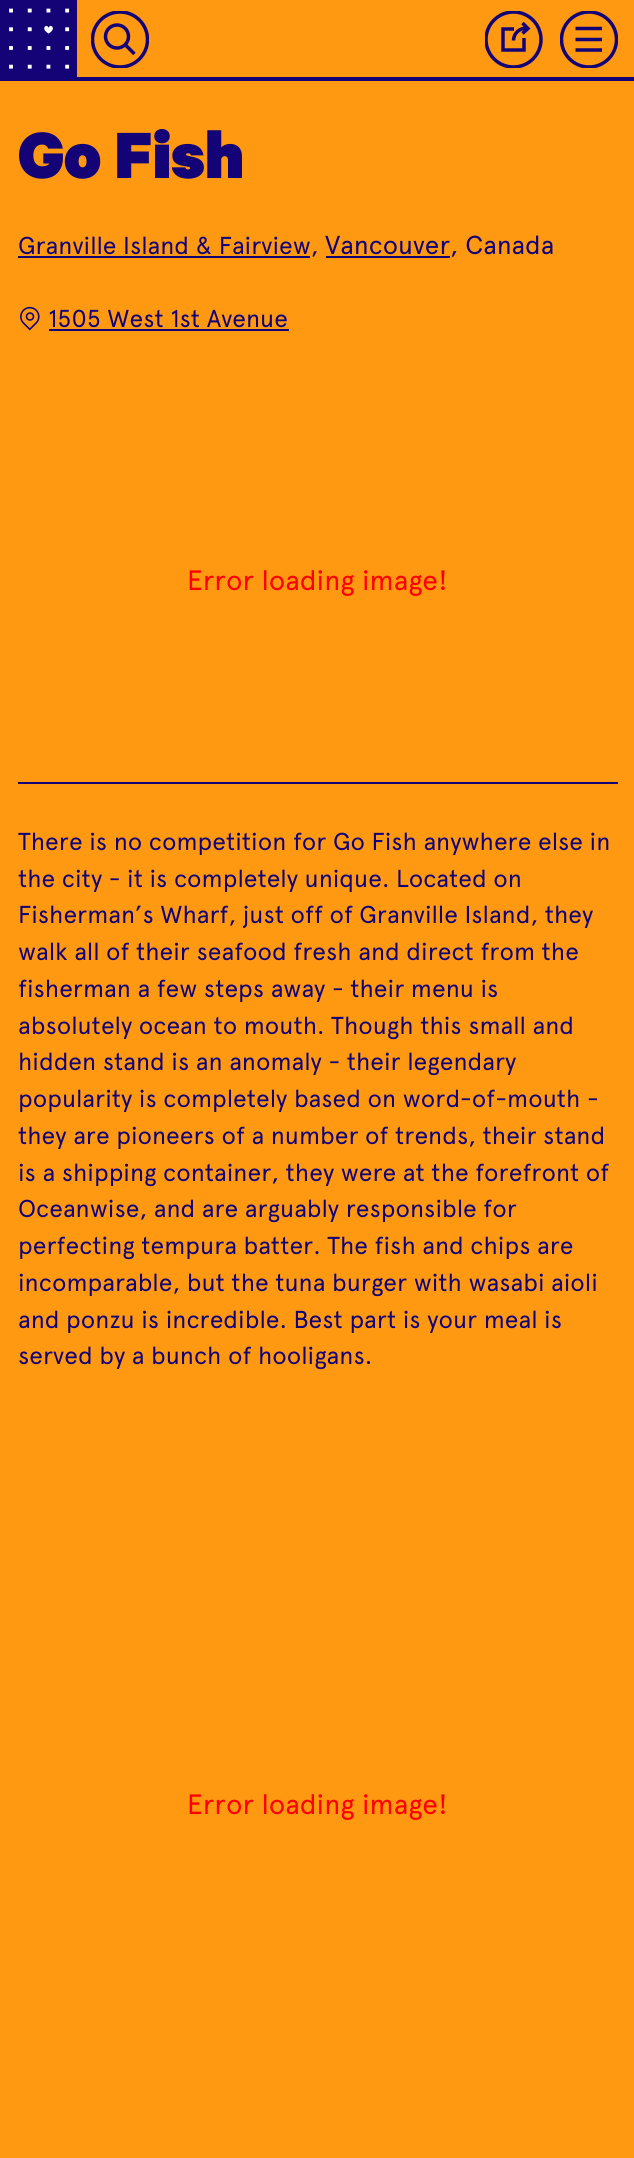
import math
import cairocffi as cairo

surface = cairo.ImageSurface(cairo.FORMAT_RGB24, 634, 2158)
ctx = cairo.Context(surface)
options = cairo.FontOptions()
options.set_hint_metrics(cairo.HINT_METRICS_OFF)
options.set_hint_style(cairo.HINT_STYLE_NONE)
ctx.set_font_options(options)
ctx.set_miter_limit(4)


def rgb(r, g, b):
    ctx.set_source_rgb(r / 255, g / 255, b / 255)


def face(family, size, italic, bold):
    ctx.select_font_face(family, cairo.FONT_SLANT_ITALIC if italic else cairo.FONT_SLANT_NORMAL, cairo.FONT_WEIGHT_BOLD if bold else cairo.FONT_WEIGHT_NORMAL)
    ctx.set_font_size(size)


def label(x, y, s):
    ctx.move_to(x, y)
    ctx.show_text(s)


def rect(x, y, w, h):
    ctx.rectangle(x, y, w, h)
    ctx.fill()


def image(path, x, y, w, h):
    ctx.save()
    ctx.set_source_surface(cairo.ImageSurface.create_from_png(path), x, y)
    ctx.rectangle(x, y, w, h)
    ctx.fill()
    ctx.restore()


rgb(255, 153, 18)
ctx.paint()
rgb(19, 3, 119)
rect(0, 77, 634, 4)
rect(0, 0, 77, 77)
image('image0.png', 9, 8, 61, 61)
ctx.save()
ctx.rectangle(91, 11, 58, 57)
ctx.clip()
ctx.arc(120, 39.5, 27.5, 0, 2 * math.pi)
ctx.set_line_width(3.5)
ctx.stroke()
ctx.restore()
ctx.arc(117, 36.5, 11.5, 0, 2 * math.pi)
ctx.set_line_width(3.5)
ctx.stroke()
ctx.new_path()
ctx.move_to(125.5, 45)
ctx.line_to(134.5, 54)
ctx.stroke()
ctx.save()
ctx.rectangle(485, 11, 58, 57)
ctx.clip()
ctx.arc(513.5, 39.5, 27.5, 0, 2 * math.pi)
ctx.stroke()
ctx.restore()
ctx.new_path()
ctx.move_to(524, 38)
ctx.line_to(524, 50)
ctx.line_to(503, 50)
ctx.line_to(503, 29)
ctx.line_to(514, 29)
ctx.move_to(522.5, 23)
ctx.line_to(528, 28.5)
ctx.line_to(522.5, 33.5)
ctx.move_to(513.5, 40.5)
ctx.curve_to(513.5, 33.5, 519.5, 28, 526.5, 28)
ctx.stroke()
ctx.save()
ctx.rectangle(560, 11, 58, 57)
ctx.clip()
ctx.arc(589, 39.5, 27.5, 0, 2 * math.pi)
ctx.stroke()
ctx.restore()
ctx.new_path()
ctx.move_to(575.5, 28.5)
ctx.line_to(602, 28.5)
ctx.move_to(575.5, 39.5)
ctx.line_to(602, 39.5)
ctx.move_to(575.5, 50)
ctx.line_to(602, 50)
ctx.stroke()
face('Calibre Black', 73.5, 0, 0)
label(18, 178, 'Go Fish')
rect(18, 256, 292, 2)
face('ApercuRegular', 24.5, 0, 0)
label(18, 254, 'Granville Island & Fairview,')
rect(326, 256, 124, 2)
face('ApercuRegular', 26, 0, 0)
label(325, 254, 'Vancouver, Canada')
image('image1.png', 20, 306, 20, 25)
face('ApercuRegular', 24.5, 0, 0)
label(48, 327, '1505 West 1st Avenue')
rect(49, 329, 240, 2)
ctx.rectangle(20, 382, 596, 400)
ctx.set_line_width(4)
ctx.stroke()
rgb(255, 153, 18)
rect(18, 380, 600, 402)
face('ApercuRegular', 28, 0, 0)
rgb(255, 0, 0)
label(187, 590, 'Error loading image!')
face('ApercuRegular', 24.5, 0, 0)
rgb(19, 3, 119)
label(18, 850, 'There is no competition for Go Fish anywhere else in')
label(18, 887, 'the city - it is completely unique. Located on')
label(18, 923, 'Fisherman’s Wharf, just off of Granville Island, they')
label(18, 960, 'walk all of their seafood fresh and direct from the')
label(18, 997, 'fisherman a few steps away - their menu is')
label(18, 1034, 'absolutely ocean to mouth. Though this small and')
label(18, 1070, 'hidden stand is an anomaly - their legendary')
label(18, 1107, 'popularity is completely based on word-of-mouth -')
label(18, 1144, 'they are pioneers of a number of trends, their stand')
label(18, 1181, 'is a shipping container, they were at the forefront of')
label(18, 1217, 'Oceanwise, and are arguably responsible for')
label(18, 1254, 'perfecting tempura batter. The fish and chips are')
label(18, 1291, 'incomparable, but the tuna burger with wasabi aioli')
label(18, 1328, 'and ponzu is incredible. Best part is your meal is')
label(18, 1364, 'served by a bunch of hooligans.')
face('ApercuRegular', 28, 0, 0)
rgb(255, 0, 0)
label(187, 1814, 'Error loading image!')
surface.write_to_png('render.png')
